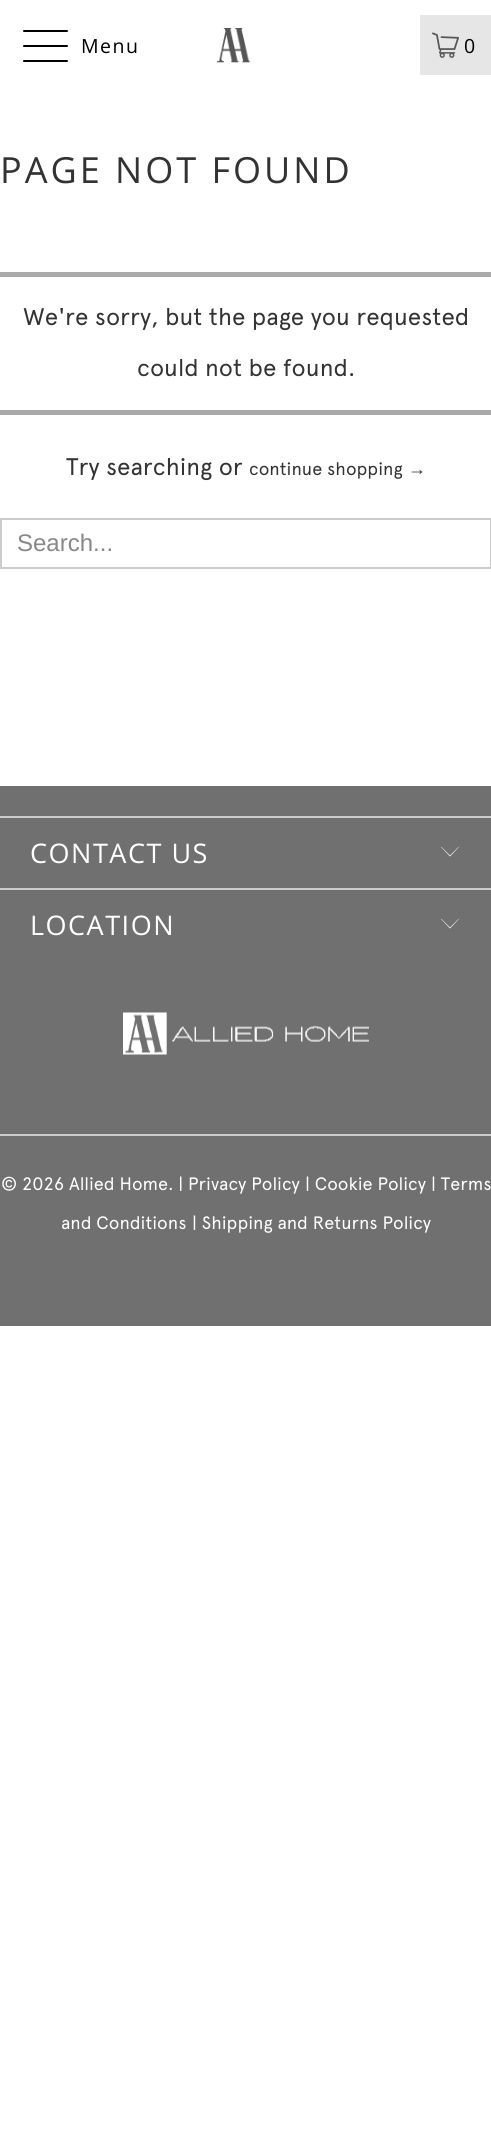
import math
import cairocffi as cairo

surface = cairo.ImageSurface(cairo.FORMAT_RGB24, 491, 2138)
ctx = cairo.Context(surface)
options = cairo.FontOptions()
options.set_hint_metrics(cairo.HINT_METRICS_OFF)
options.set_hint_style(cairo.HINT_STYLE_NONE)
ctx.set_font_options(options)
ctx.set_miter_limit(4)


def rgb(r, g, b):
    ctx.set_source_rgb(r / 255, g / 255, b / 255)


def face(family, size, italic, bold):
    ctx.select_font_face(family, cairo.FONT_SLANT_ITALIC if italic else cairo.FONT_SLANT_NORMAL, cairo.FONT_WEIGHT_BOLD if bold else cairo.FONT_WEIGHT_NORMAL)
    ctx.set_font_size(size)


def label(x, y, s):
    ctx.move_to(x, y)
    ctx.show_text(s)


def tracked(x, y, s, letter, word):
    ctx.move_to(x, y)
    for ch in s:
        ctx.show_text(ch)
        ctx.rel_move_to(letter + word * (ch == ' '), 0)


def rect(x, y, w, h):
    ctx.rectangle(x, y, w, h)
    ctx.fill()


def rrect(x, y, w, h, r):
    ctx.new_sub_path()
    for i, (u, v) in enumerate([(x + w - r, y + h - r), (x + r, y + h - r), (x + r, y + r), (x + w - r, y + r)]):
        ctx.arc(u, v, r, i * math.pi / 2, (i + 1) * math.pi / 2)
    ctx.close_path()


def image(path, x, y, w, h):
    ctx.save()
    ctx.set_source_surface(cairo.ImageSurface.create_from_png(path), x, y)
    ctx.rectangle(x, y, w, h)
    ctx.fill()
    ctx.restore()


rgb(255, 255, 255)
ctx.paint()
rgb(0, 0, 0)
rrect(23, 30, 45, 2, 1)
ctx.fill()
rrect(23, 45, 45, 2, 1)
ctx.fill()
rrect(23, 60, 45, 2, 1)
ctx.fill()
face('Open Sans', 19.5, 0, 0)
tracked(81, 53, 'Menu', 1.5, 0)
image('image0.png', 216, 28, 35, 35)
rgb(230, 230, 230)
rect(420, 15, 71, 60)
image('image1.png', 432, 32, 27, 26)
rgb(0, 0, 0)
tracked(464, 53, '0', 1.5, 0)
face('Open Sans', 36, 0, 0)
rgb(51, 51, 51)
tracked(0, 183, 'PAGE NOT FOUND', 3, 0)
rgb(170, 170, 170)
rect(0, 272, 491, 5)
rect(0, 410, 491, 5)
face('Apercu', 24, 0, 0)
rgb(51, 51, 51)
label(23, 325, 'We\'re sorry, but the page you requested')
label(137, 376, 'could not be found.')
label(66, 475, 'Try searching or')
face('Apercu', 18, 0, 0)
label(249, 475, 'continue shopping')
face('Liberation Serif', 18, 0, 0)
label(408, 475, '→')
ctx.rectangle(1, 519, 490, 49)
rgb(204, 204, 204)
ctx.stroke()
face('Liberation Sans', 24, 0, 0)
rgb(136, 136, 136)
label(17, 551, 'Search...')
rgb(112, 112, 112)
rect(0, 786, 491, 540)
rgb(204, 204, 204)
rect(0, 816, 491, 2)
face('Open Sans', 27, 0, 0)
rgb(255, 255, 255)
tracked(30, 863, 'CONTACT US', 1.5, 0)
ctx.new_path()
ctx.move_to(450, 856.5)
ctx.line_to(441, 847)
ctx.line_to(441.5, 847)
ctx.line_to(450, 855.5)
ctx.line_to(458.5, 847)
ctx.line_to(459, 847)
ctx.close_path()
ctx.fill()
rgb(204, 204, 204)
rect(0, 888, 491, 2)
rgb(255, 255, 255)
tracked(30, 935, 'LOCATION', 1.5, 0)
ctx.new_path()
ctx.move_to(450, 928.5)
ctx.line_to(441, 919)
ctx.line_to(441.5, 919)
ctx.line_to(450, 927.5)
ctx.line_to(458.5, 919)
ctx.line_to(459, 919)
ctx.close_path()
ctx.fill()
image('image2.png', 123, 1012, 246, 43)
rgb(204, 204, 204)
rect(0, 1134, 491, 2)
face('Apercu', 18, 0, 0)
rgb(255, 255, 255)
label(1, 1190, '© 2026 Allied Home')
label(168, 1190, '. | Privacy Policy')
label(305, 1190, '| Cookie Policy')
label(431, 1190, '| Terms')
label(61, 1229, 'and Conditions')
label(192, 1229, '| Shipping and Returns Policy')
surface.write_to_png('render.png')
